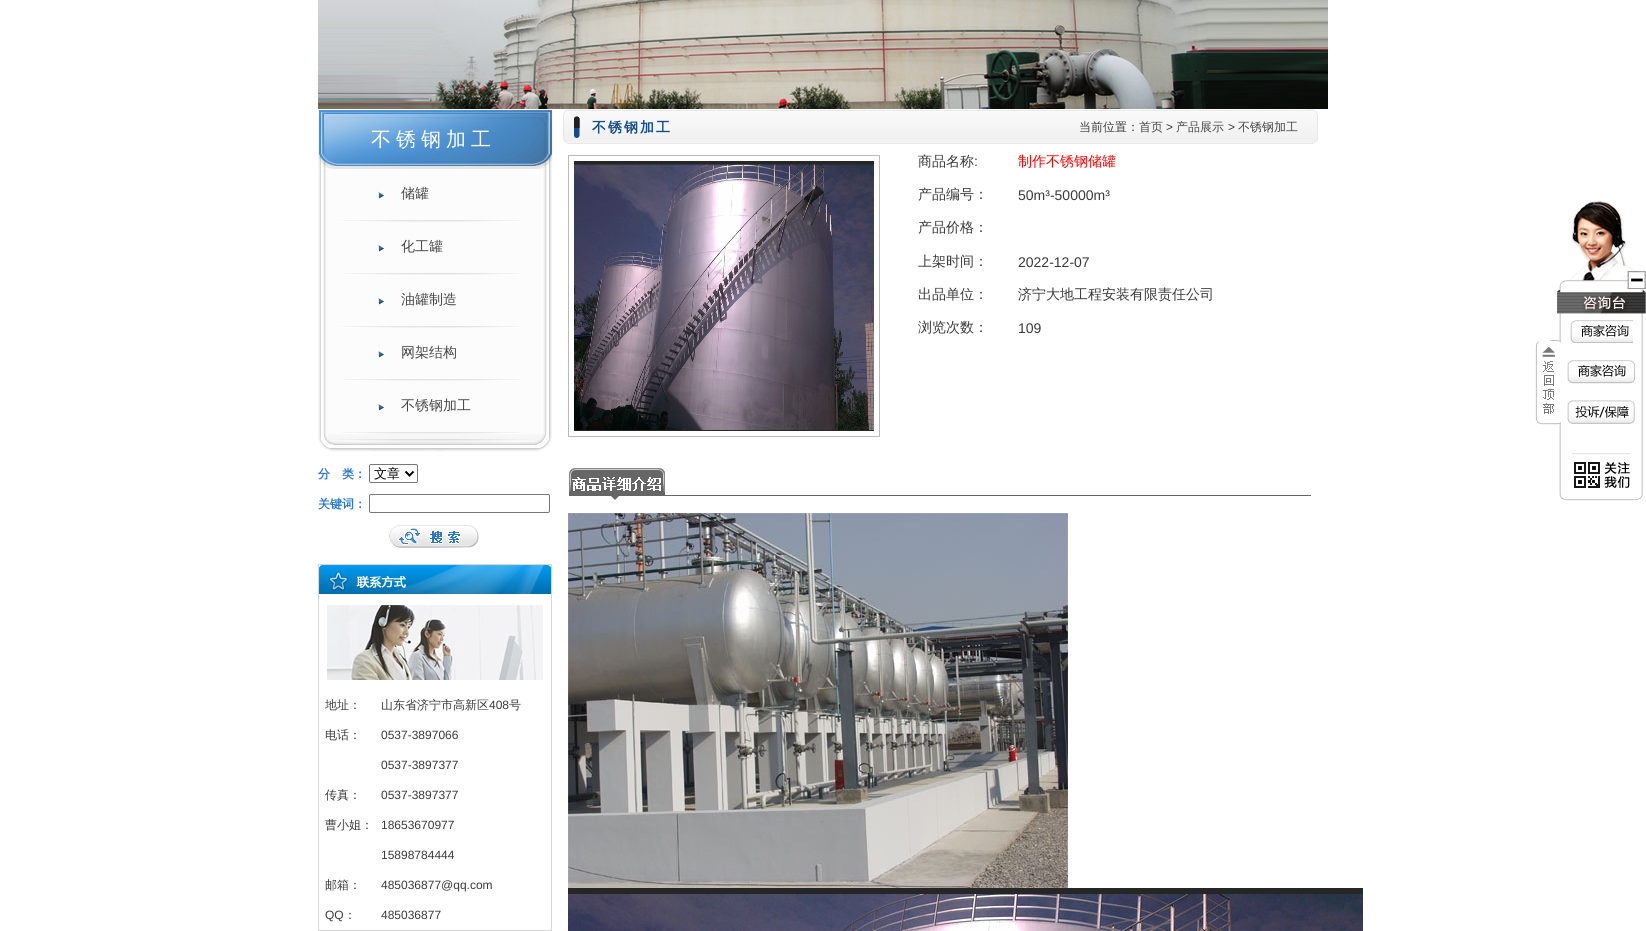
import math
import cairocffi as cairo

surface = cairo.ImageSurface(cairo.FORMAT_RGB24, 1646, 931)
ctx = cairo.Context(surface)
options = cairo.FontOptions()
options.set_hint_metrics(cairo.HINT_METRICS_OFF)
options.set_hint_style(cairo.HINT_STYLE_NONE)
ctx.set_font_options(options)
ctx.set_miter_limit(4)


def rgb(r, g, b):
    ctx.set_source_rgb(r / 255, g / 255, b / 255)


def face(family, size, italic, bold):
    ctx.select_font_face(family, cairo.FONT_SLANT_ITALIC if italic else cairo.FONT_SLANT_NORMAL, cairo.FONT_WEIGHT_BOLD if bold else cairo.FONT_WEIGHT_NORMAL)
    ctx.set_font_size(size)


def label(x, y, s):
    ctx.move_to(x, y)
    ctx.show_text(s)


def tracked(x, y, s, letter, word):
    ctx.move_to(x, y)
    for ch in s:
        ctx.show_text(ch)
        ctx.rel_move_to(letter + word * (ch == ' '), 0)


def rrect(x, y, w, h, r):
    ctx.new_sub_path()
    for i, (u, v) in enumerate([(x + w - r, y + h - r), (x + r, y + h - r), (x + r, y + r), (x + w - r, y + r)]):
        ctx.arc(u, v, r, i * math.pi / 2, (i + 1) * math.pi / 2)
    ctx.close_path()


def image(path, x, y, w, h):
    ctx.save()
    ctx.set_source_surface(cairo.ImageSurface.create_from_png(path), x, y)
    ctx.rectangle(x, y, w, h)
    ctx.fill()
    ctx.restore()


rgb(255, 255, 255)
ctx.paint()
image('image0.png', 318, 0, 1010, 109)
image('image1.png', 318, 169, 234, 265)
image('image2.png', 318, 109, 235, 60)
face('WenQuanYi Zen Hei Medium', 20, 0, 0)
rgb(255, 255, 255)
tracked(371, 146, '不锈钢加工', 5, 0)
image('image3.png', 378, 191, 6, 8)
face('WenQuanYi Zen Hei Medium', 14, 0, 0)
rgb(71, 71, 71)
label(401, 198, '储罐')
image('image4.png', 341, 220, 180, 2)
image('image3.png', 378, 244, 6, 8)
label(401, 251, '化工罐')
image('image4.png', 341, 273, 180, 2)
image('image3.png', 378, 297, 6, 8)
label(401, 304, '油罐制造')
image('image4.png', 341, 326, 180, 2)
image('image3.png', 378, 350, 6, 8)
label(401, 357, '网架结构')
image('image4.png', 341, 379, 180, 2)
image('image3.png', 378, 403, 6, 8)
label(401, 410, '不锈钢加工')
image('image4.png', 341, 432, 180, 2)
image('image5.png', 318, 434, 234, 20)
face('WenQuanYi Zen Hei', 12, 0, 1)
rgb(42, 119, 211)
label(318, 478, '分')
label(342, 478, '类：')
rrect(369.5, 464.5, 48, 18, 1.5)
rgb(118, 118, 118)
ctx.set_line_width(1)
ctx.stroke()
ctx.new_path()
ctx.move_to(405.5, 471.5)
ctx.line_to(409.5, 475.5)
ctx.line_to(413.5, 471.5)
rgb(0, 0, 0)
ctx.set_line_width(2)
ctx.stroke()
face('WenQuanYi Zen Hei Medium', 13, 0, 0)
label(374, 478, '文章')
face('WenQuanYi Zen Hei', 12, 0, 1)
rgb(42, 119, 211)
label(318, 508, '关键词：')
rrect(369.5, 494.5, 180, 18, 1.5)
rgb(118, 118, 118)
ctx.set_line_width(1)
ctx.stroke()
image('image6.png', 389, 525, 90, 23)
ctx.rectangle(318.5, 564.5, 233, 366)
rgb(215, 215, 215)
ctx.stroke()
image('image7.png', 319, 565, 232, 29)
image('image8.png', 327, 605, 216, 75)
face('WenQuanYi Zen Hei Medium', 12, 0, 0)
rgb(58, 58, 58)
label(325, 709, '地址：')
label(381, 709, '山东省济宁市高新区')
face('Liberation Sans', 12, 0, 0)
label(489, 709, '408')
face('WenQuanYi Zen Hei Medium', 12, 0, 0)
label(509, 709, '号')
label(325, 739, '电话：')
face('Liberation Sans', 12, 0, 0)
label(381, 739, '0537-3897066')
label(381, 769, '0537-3897377')
face('WenQuanYi Zen Hei Medium', 12, 0, 0)
label(325, 799, '传真：')
face('Liberation Sans', 12, 0, 0)
label(381, 799, '0537-3897377')
face('WenQuanYi Zen Hei Medium', 12, 0, 0)
label(325, 829, '曹小姐：')
face('Liberation Sans', 12, 0, 0)
label(381, 829, '18653670977')
label(381, 859, '15898784444')
face('WenQuanYi Zen Hei Medium', 12, 0, 0)
label(325, 889, '邮箱：')
face('Liberation Sans', 12, 0, 0)
label(381, 889, '485036877@qq.com')
label(325, 919, 'QQ')
face('WenQuanYi Zen Hei Medium', 12, 0, 0)
label(344, 919, '：')
face('Liberation Sans', 12, 0, 0)
label(381, 919, '485036877')
image('image9.png', 563, 109, 755, 35)
face('WenQuanYi Zen Hei', 14, 0, 1)
rgb(20, 75, 141)
tracked(592, 132, '不锈钢加工', 2, 0)
face('WenQuanYi Zen Hei Medium', 12, 0, 0)
rgb(58, 58, 58)
label(1079, 131, '当前位置：')
rgb(71, 71, 71)
label(1139, 131, '首页')
face('Liberation Sans', 12, 0, 0)
rgb(58, 58, 58)
label(1166, 131, '>')
face('WenQuanYi Zen Hei Medium', 12, 0, 0)
rgb(71, 71, 71)
label(1176, 131, '产品展示')
face('Liberation Sans', 12, 0, 0)
rgb(58, 58, 58)
label(1228, 131, '>')
face('WenQuanYi Zen Hei Medium', 12, 0, 0)
rgb(71, 71, 71)
label(1238, 131, '不锈钢加工')
ctx.rectangle(568.5, 155.5, 311, 281)
rgb(186, 186, 186)
ctx.stroke()
image('image10.png', 574, 161, 300, 270)
face('WenQuanYi Zen Hei Medium', 14, 0, 0)
rgb(58, 58, 58)
label(918, 166, '商品名称')
face('Liberation Sans', 14, 0, 0)
label(974, 166, ':')
face('WenQuanYi Zen Hei Medium', 14, 0, 0)
rgb(255, 0, 0)
label(1018, 166, '制作不锈钢储罐')
rgb(58, 58, 58)
label(918, 199, '产品编号：')
face('Liberation Sans', 14, 0, 0)
label(1018, 200, '50m³-50000m³')
face('WenQuanYi Zen Hei Medium', 14, 0, 0)
label(918, 232, '产品价格：')
label(918, 266, '上架时间：')
face('Liberation Sans', 14, 0, 0)
label(1018, 267, '2022-12-07')
face('WenQuanYi Zen Hei Medium', 14, 0, 0)
label(918, 299, '出品单位：')
label(1018, 299, '济宁大地工程安装有限责任公司')
label(918, 332, '浏览次数：')
face('Liberation Sans', 14, 0, 0)
label(1018, 333, '109')
image('image11.png', 569, 468, 742, 32)
image('image12.png', 568, 513, 500, 375)
image('image13.png', 568, 888, 795, 43)
image('image14.png', 1557, 200, 89, 301)
image('image15.png', 1627, 271, 19, 18)
image('image16.png', 1570, 320, 63, 23)
image('image17.png', 1535, 340, 26, 85)
image('image18.png', 1567, 360, 68, 24)
image('image19.png', 1567, 400, 68, 24)
image('image20.png', 1574, 462, 56, 26)
surface.write_to_png('render.png')
